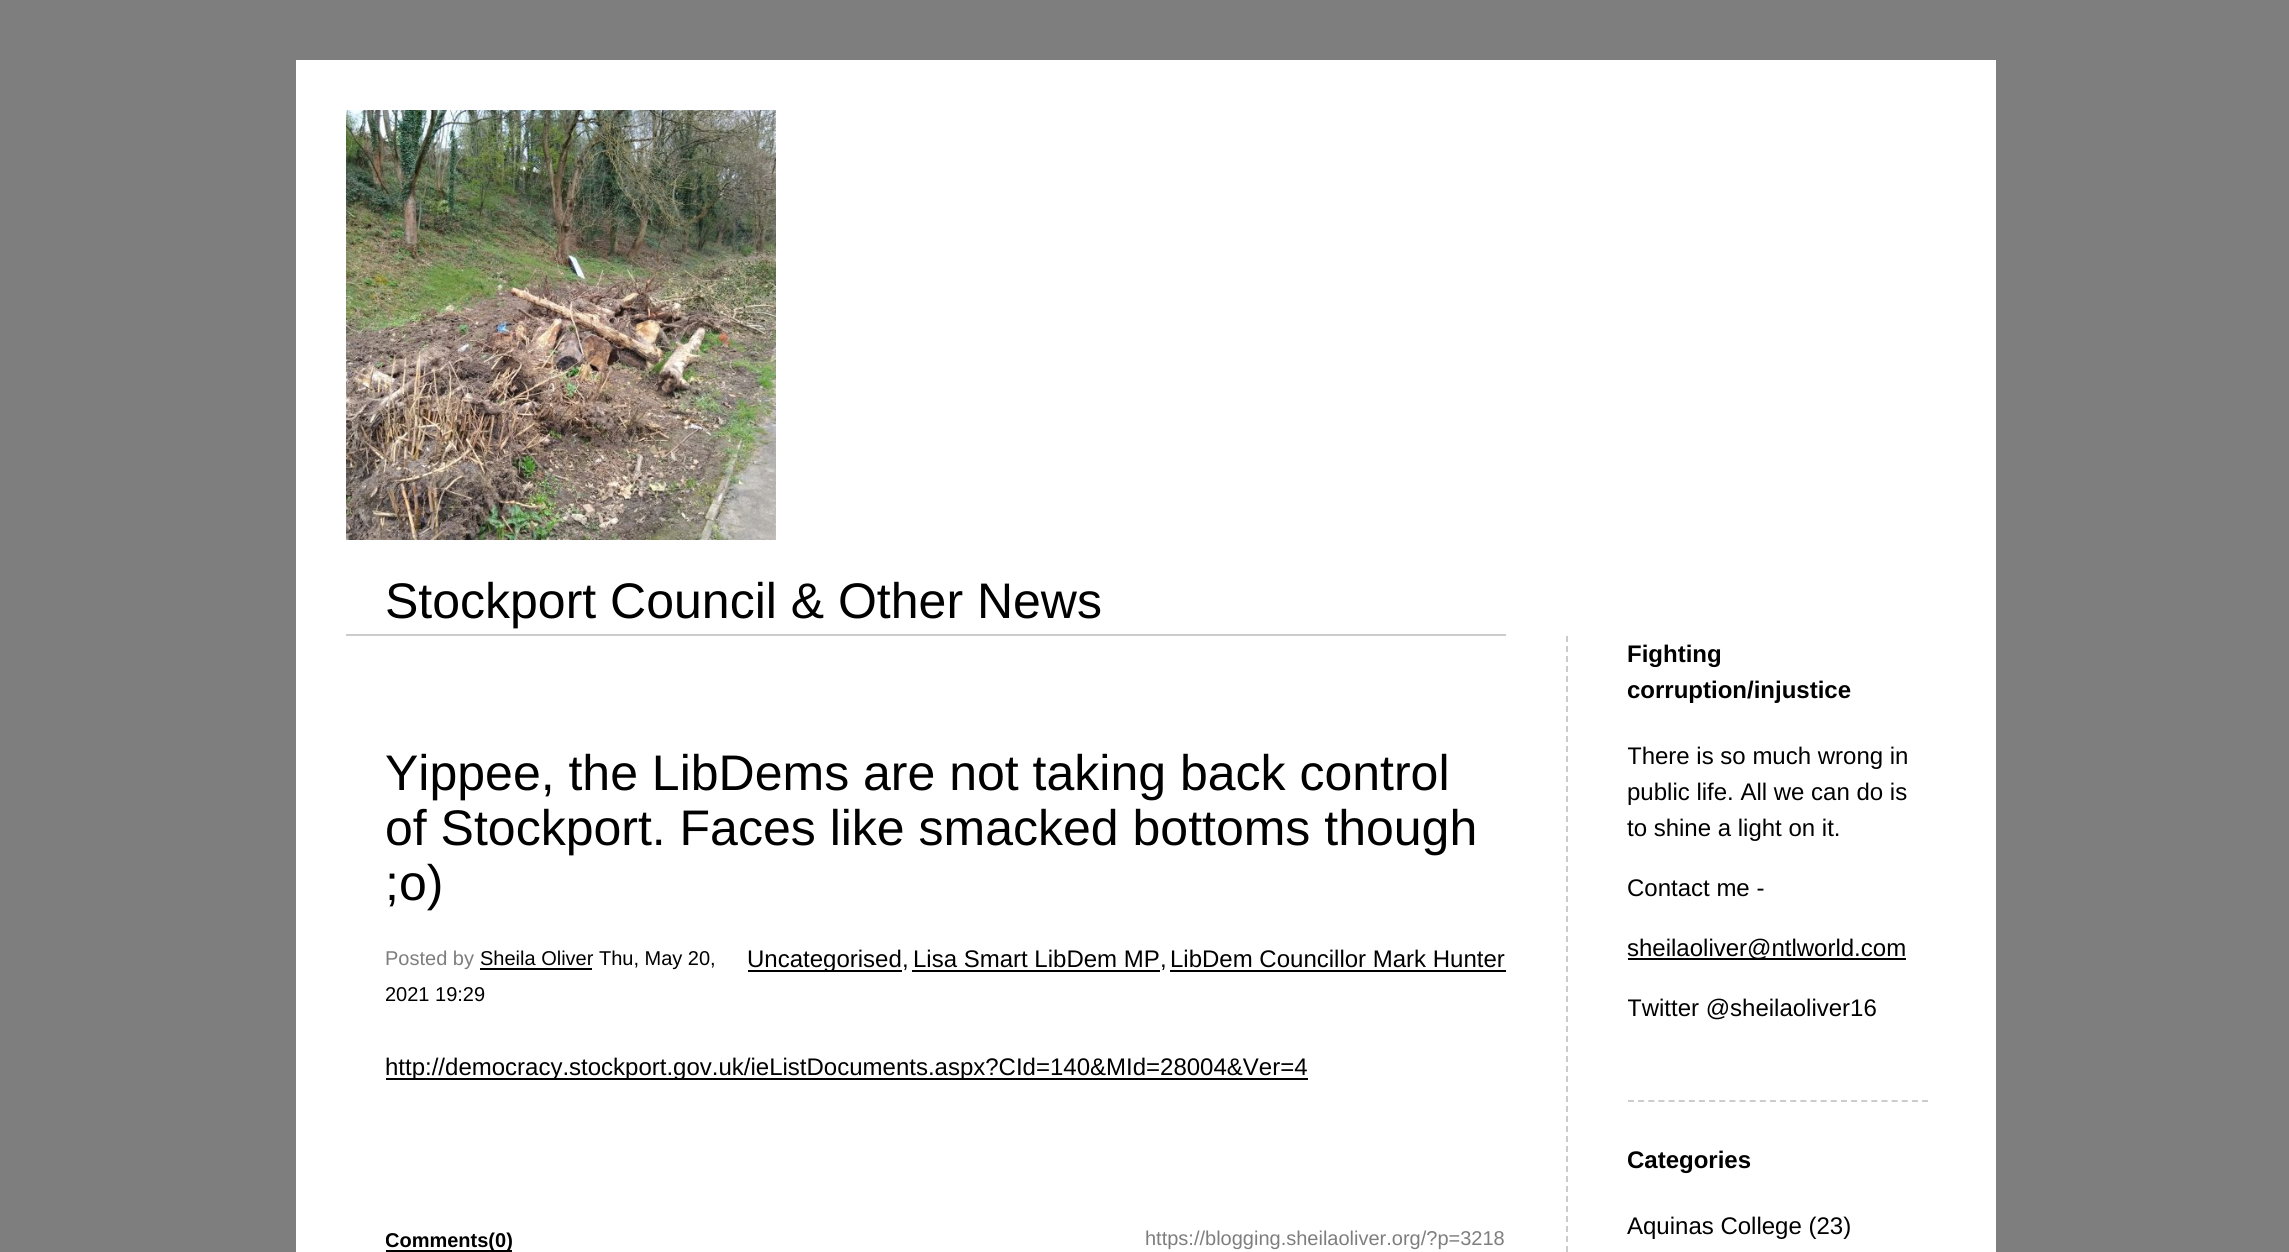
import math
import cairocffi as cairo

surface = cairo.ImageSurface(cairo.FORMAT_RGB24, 2289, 1252)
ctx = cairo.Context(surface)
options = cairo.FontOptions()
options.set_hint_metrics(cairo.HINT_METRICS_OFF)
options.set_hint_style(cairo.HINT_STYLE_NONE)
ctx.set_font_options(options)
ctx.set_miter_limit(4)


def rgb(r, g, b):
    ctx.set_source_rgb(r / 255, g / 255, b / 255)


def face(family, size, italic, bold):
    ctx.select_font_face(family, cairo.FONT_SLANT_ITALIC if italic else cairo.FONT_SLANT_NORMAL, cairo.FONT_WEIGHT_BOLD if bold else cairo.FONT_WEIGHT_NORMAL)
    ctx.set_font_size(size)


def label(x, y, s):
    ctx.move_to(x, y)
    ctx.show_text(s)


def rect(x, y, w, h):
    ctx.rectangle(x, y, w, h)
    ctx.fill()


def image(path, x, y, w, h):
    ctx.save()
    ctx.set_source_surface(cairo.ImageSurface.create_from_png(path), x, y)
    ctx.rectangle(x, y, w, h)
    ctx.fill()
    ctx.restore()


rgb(126, 126, 126)
ctx.paint()
rgb(255, 255, 255)
rect(296, 60, 1700, 1192)
image('image0.png', 346, 110, 430, 430)
rgb(204, 204, 204)
rect(346, 634, 1160, 2)
face('Liberation Sans', 50, 0, 0)
rgb(0, 0, 0)
label(385, 618, 'Stockport Council & Other News')
label(385, 790, 'Yippee, the LibDems are not taking back control')
label(385, 845, 'of Stockport. Faces like smacked bottoms though')
label(385, 900, ';o)')
face('Liberation Sans', 20, 0, 0)
rgb(126, 126, 126)
label(385, 965, 'Posted by')
rgb(0, 0, 0)
rect(480, 968, 112, 2)
label(480, 965, 'Sheila Oliver Thu, May 20,')
label(385, 1001, '2021 19:29')
rect(748, 970, 154, 2)
face('Liberation Sans', 24, 0, 0)
label(747, 967, 'Uncategorised')
label(902, 967, ',')
label(913, 967, 'Lisa Smart LibDem MP')
rect(912, 970, 248, 2)
label(1160, 967, ',')
label(1170, 967, 'LibDem Councillor Mark Hunter')
rect(1170, 970, 336, 2)
rect(386, 1078, 922, 2)
label(385, 1075, 'http://democracy.stockport.gov.uk/ieListDocuments.aspx?CId=140&MId=28004&Ver=4')
rect(386, 1250, 126, 2)
ctx.save()
ctx.rectangle(386, 716, 1120, 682)
ctx.clip()
face('Liberation Sans', 20, 0, 1)
label(385, 1247, 'Comments(0)')
ctx.restore()
face('Liberation Sans', 20, 0, 0)
rgb(126, 126, 126)
label(1145, 1245, 'https://blogging.sheilaoliver.org/?p=3218')
ctx.new_path()
ctx.move_to(1567, 636)
ctx.line_to(1567, 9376)
rgb(204, 204, 204)
ctx.set_dash([6, 4])
ctx.stroke()
ctx.new_path()
ctx.move_to(1628, 1101)
ctx.line_to(1928, 1101)
ctx.set_dash([6, 4.14])
ctx.stroke()
face('Liberation Sans', 24, 0, 1)
rgb(0, 0, 0)
label(1627, 662, 'Fighting')
label(1627, 698, 'corruption/injustice')
ctx.save()
ctx.rectangle(1628, 636, 300, 464)
ctx.clip()
face('Liberation Sans', 24, 0, 0)
label(1627, 764, 'There is so much wrong in')
ctx.restore()
face('Liberation Sans', 24, 0, 0)
label(1627, 800, 'public life. All we can do is')
label(1627, 836, 'to shine a light on it.')
label(1627, 896, 'Contact me -')
rect(1628, 958, 278, 2)
label(1627, 956, 'sheilaoliver@ntlworld.com')
ctx.save()
ctx.rectangle(1628, 636, 300, 464)
ctx.clip()
label(1627, 1016, 'Twitter @sheilaoliver16')
ctx.restore()
face('Liberation Sans', 24, 0, 1)
label(1627, 1168, 'Categories')
face('Liberation Sans', 24, 0, 0)
label(1627, 1234, 'Aquinas College (23)')
surface.write_to_png('render.png')
